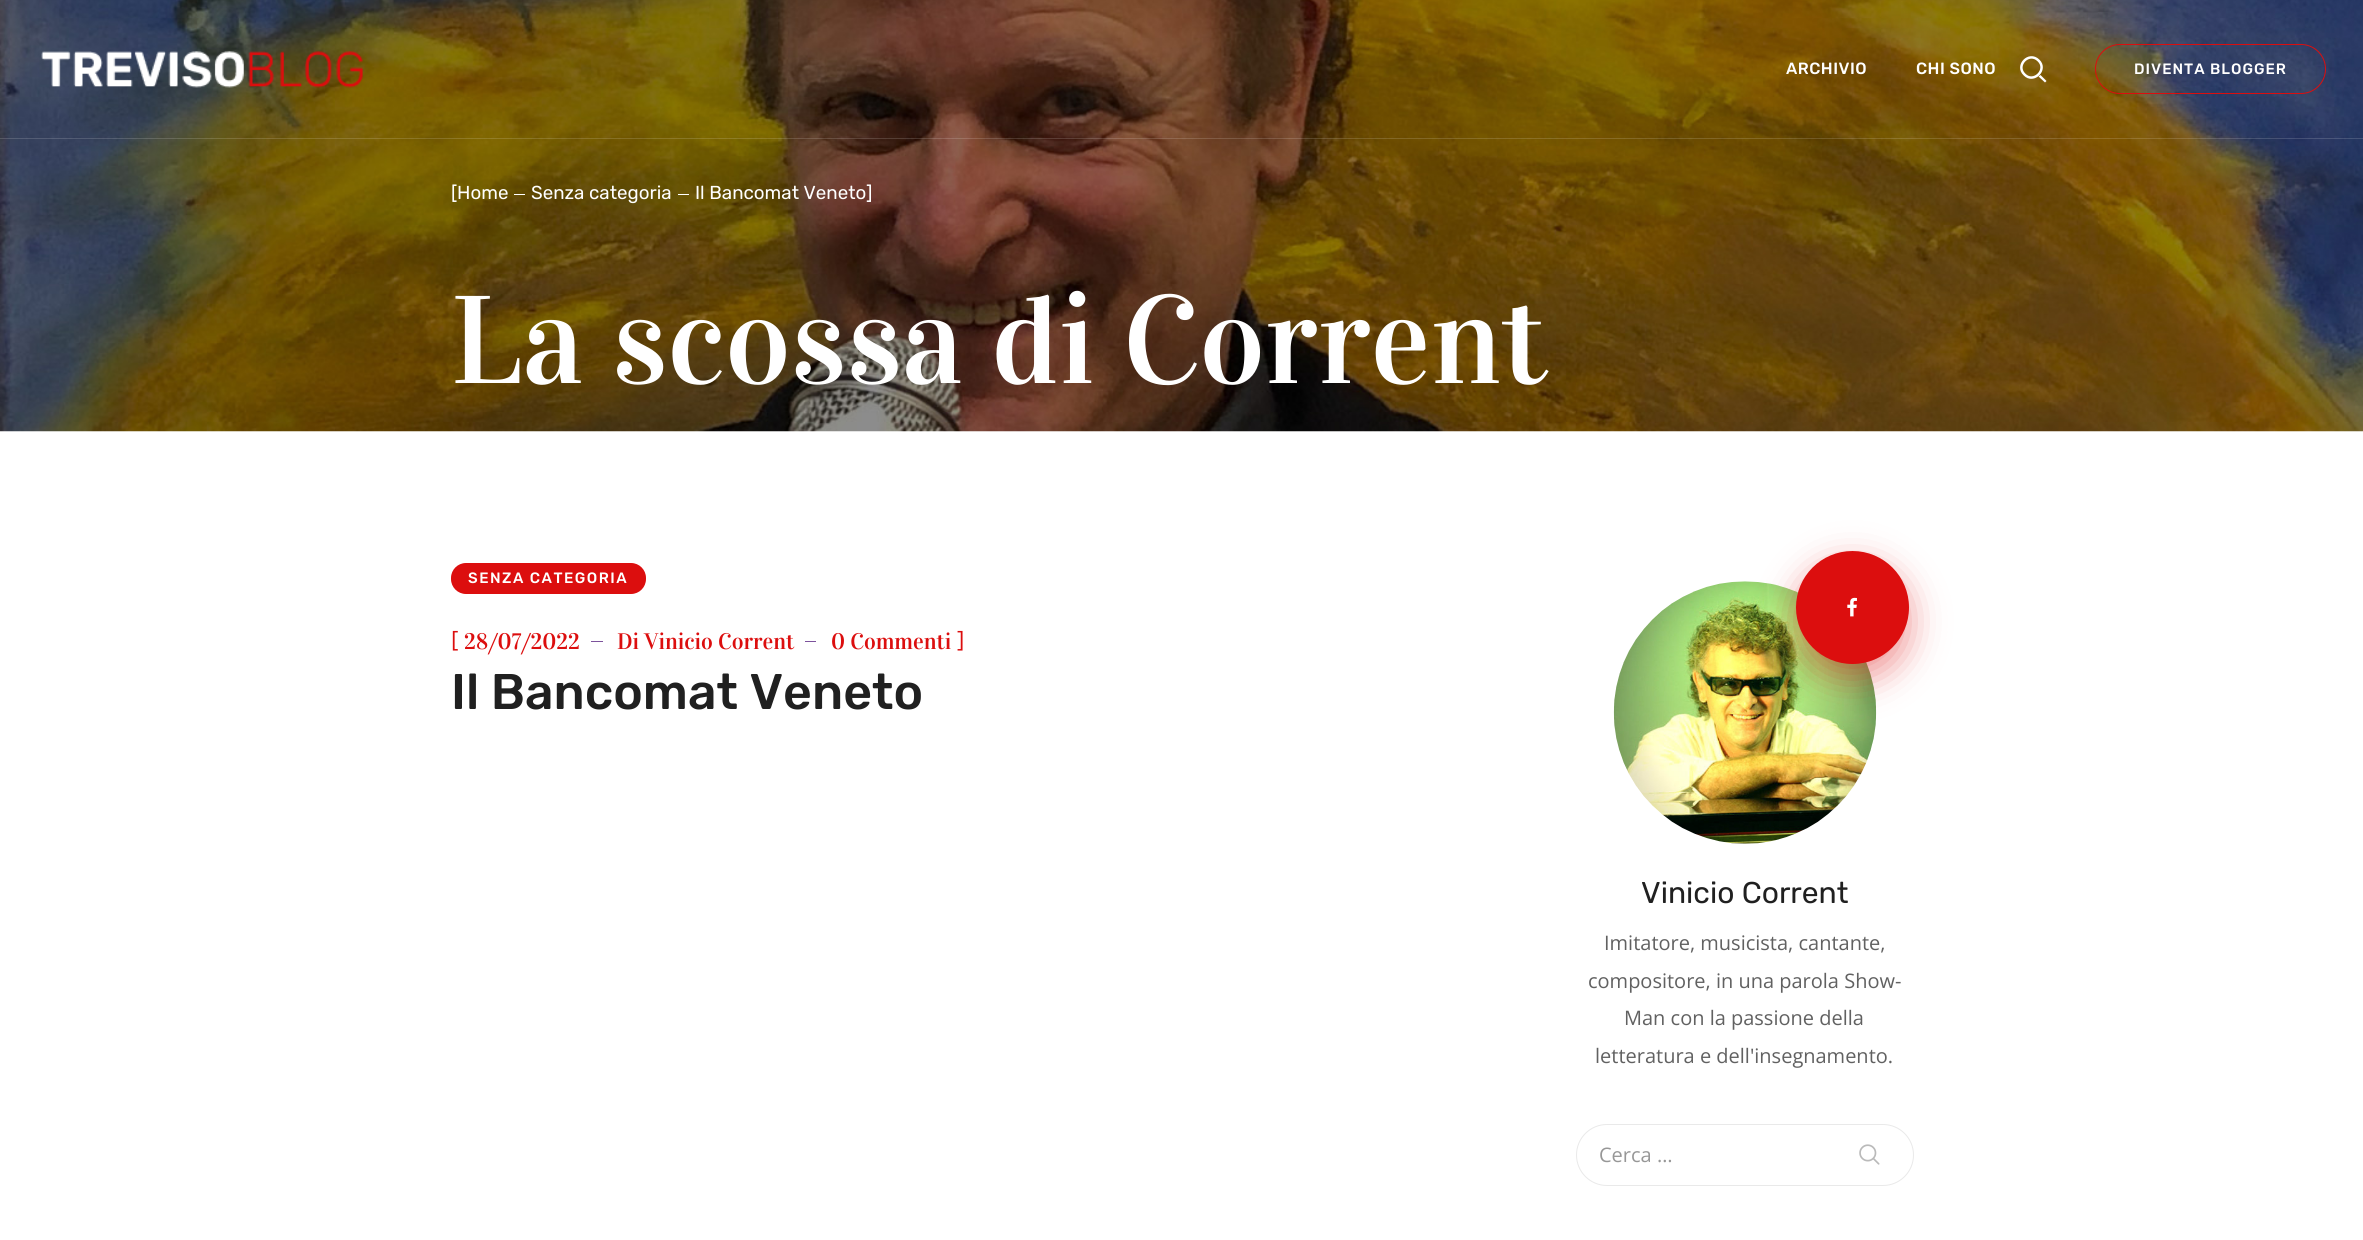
import math
import cairocffi as cairo

surface = cairo.ImageSurface(cairo.FORMAT_RGB24, 2363, 1240)
ctx = cairo.Context(surface)
options = cairo.FontOptions()
options.set_hint_metrics(cairo.HINT_METRICS_OFF)
options.set_hint_style(cairo.HINT_STYLE_NONE)
ctx.set_font_options(options)
ctx.set_miter_limit(4)


def rgb(r, g, b):
    ctx.set_source_rgb(r / 255, g / 255, b / 255)


def face(family, size, italic, bold):
    ctx.select_font_face(family, cairo.FONT_SLANT_ITALIC if italic else cairo.FONT_SLANT_NORMAL, cairo.FONT_WEIGHT_BOLD if bold else cairo.FONT_WEIGHT_NORMAL)
    ctx.set_font_size(size)


def label(x, y, s):
    ctx.move_to(x, y)
    ctx.show_text(s)


def tracked(x, y, s, letter, word):
    ctx.move_to(x, y)
    for ch in s:
        ctx.show_text(ch)
        ctx.rel_move_to(letter + word * (ch == ' '), 0)


def rect(x, y, w, h):
    ctx.rectangle(x, y, w, h)
    ctx.fill()


def rrect(x, y, w, h, r):
    ctx.new_sub_path()
    for i, (u, v) in enumerate([(x + w - r, y + h - r), (x + r, y + h - r), (x + r, y + r), (x + w - r, y + r)]):
        ctx.arc(u, v, r, i * math.pi / 2, (i + 1) * math.pi / 2)
    ctx.close_path()


def soft_shadow(x, y, w, h, r, blur, alpha):
    ctx.push_group_with_content(cairo.CONTENT_ALPHA)
    ctx.set_operator(cairo.OPERATOR_SOURCE)
    for i in range(15, -16, -2):
        e = blur * i / 6
        if min(w, h) + 2 * e > 0:
            ctx.set_source_rgba(0, 0, 0, alpha * math.erfc((i - 1) / 8.5) / 2)
            rrect(x - e, y - e, w + 2 * e, h + 2 * e, max(0, min(r + e + blur * .6, min(w, h) / 2 + e)))
            ctx.fill()
    ctx.mask(ctx.pop_group())


def image(path, x, y, w, h):
    ctx.save()
    ctx.set_source_surface(cairo.ImageSurface.create_from_png(path), x, y)
    ctx.rectangle(x, y, w, h)
    ctx.fill()
    ctx.restore()


rgb(255, 255, 255)
ctx.paint()
image('image1.png', 0, 0, 2363, 432)
ctx.set_source_rgba(1, 1, 1, 0.15)
rect(0, 138, 2363, 1)
image('image0.png', 41, 51, 322, 37)
face('Rubik Medium', 16.25, 0, 0)
rgb(255, 255, 255)
tracked(1786, 74, 'ARCHIVIO', 0.5, 0)
tracked(1916, 74, 'CHI SONO', 0.5, 0)
ctx.new_path()
ctx.move_to(2038.5, 60.5)
ctx.curve_to(2048, 69.5, 2033.5, 84, 2024.5, 74.5)
ctx.curve_to(2015, 65.5, 2029, 51, 2038.5, 60.5)
ctx.close_path()
ctx.set_line_width(2.5)
ctx.stroke()
ctx.new_path()
ctx.move_to(2038.5, 76.5)
ctx.line_to(2040.5, 75)
ctx.line_to(2046.5, 81)
ctx.line_to(2045, 82.5)
ctx.close_path()
ctx.fill()
rrect(2095.5, 44.5, 230, 49, 24.5)
rgb(220, 14, 14)
ctx.set_line_width(1)
ctx.stroke()
face('Rubik Medium', 15, 0, 0)
rgb(255, 255, 255)
tracked(2134, 74, 'DIVENTA BLOGGER', 1, 0)
face('Rubik', 18.75, 0, 0)
label(451, 199, '[Home')
rect(514, 194, 11, 1)
label(531, 199, 'Senza categoria')
rect(678, 194, 11, 1)
label(695, 199, 'Il Bancomat Veneto]')
face('Vidaloka', 125, 0, 0)
label(451, 383, 'La scossa di Corrent')
rgb(220, 14, 14)
rrect(451, 563, 195, 31, 15)
ctx.fill()
face('Rubik Medium', 15, 0, 0)
rgb(255, 255, 255)
tracked(468, 583, 'SENZA CATEGORIA', 1.5, 0)
face('Open Sans', 22.5, 0, 0)
rgb(220, 14, 14)
label(451, 647, '[')
face('Vidaloka', 22.5, 0, 0)
label(464, 649, '28/07/2022')
rgb(124, 82, 156)
rect(591, 641, 12, 1)
rgb(220, 14, 14)
label(617, 649, 'Di Vinicio Corrent')
rgb(124, 82, 156)
rect(805, 641, 11, 1)
rgb(220, 14, 14)
label(831, 649, '0 Commenti')
face('Open Sans', 22.5, 0, 0)
label(957, 647, ']')
face('Rubik Medium', 50, 0, 0)
rgb(32, 32, 32)
label(451, 709, 'Il Bancomat Veneto')
image('image3.png', 1613, 581, 264, 263)
rgb(220, 14, 14)
soft_shadow(1796, 565, 113, 113, 56.5, 18, 0.45)
rgb(220, 14, 14)
ctx.arc(1852.5, 607.5, 56.5, 0, 2 * math.pi)
ctx.fill()
image('image2.png', 1847, 597, 10, 20)
face('Rubik', 30, 0, 0)
rgb(32, 32, 32)
label(1641, 903, 'Vinicio Corrent')
face('Open Sans', 20, 0, 0)
rgb(97, 97, 97)
label(1604, 950, 'Imitatore, musicista, cantante,')
label(1588, 988, 'compositore, in una parola Show-')
label(1624, 1025, 'Man con la passione della')
label(1595, 1063, 'letteratura e dell\'insegnamento.')
rrect(1576.5, 1124.5, 337, 61, 30.5)
rgb(233, 233, 233)
ctx.stroke()
rgb(151, 151, 151)
label(1599, 1162, 'Cerca …')
image('image4.png', 1859, 1144, 21, 21)
surface.write_to_png('render.png')
